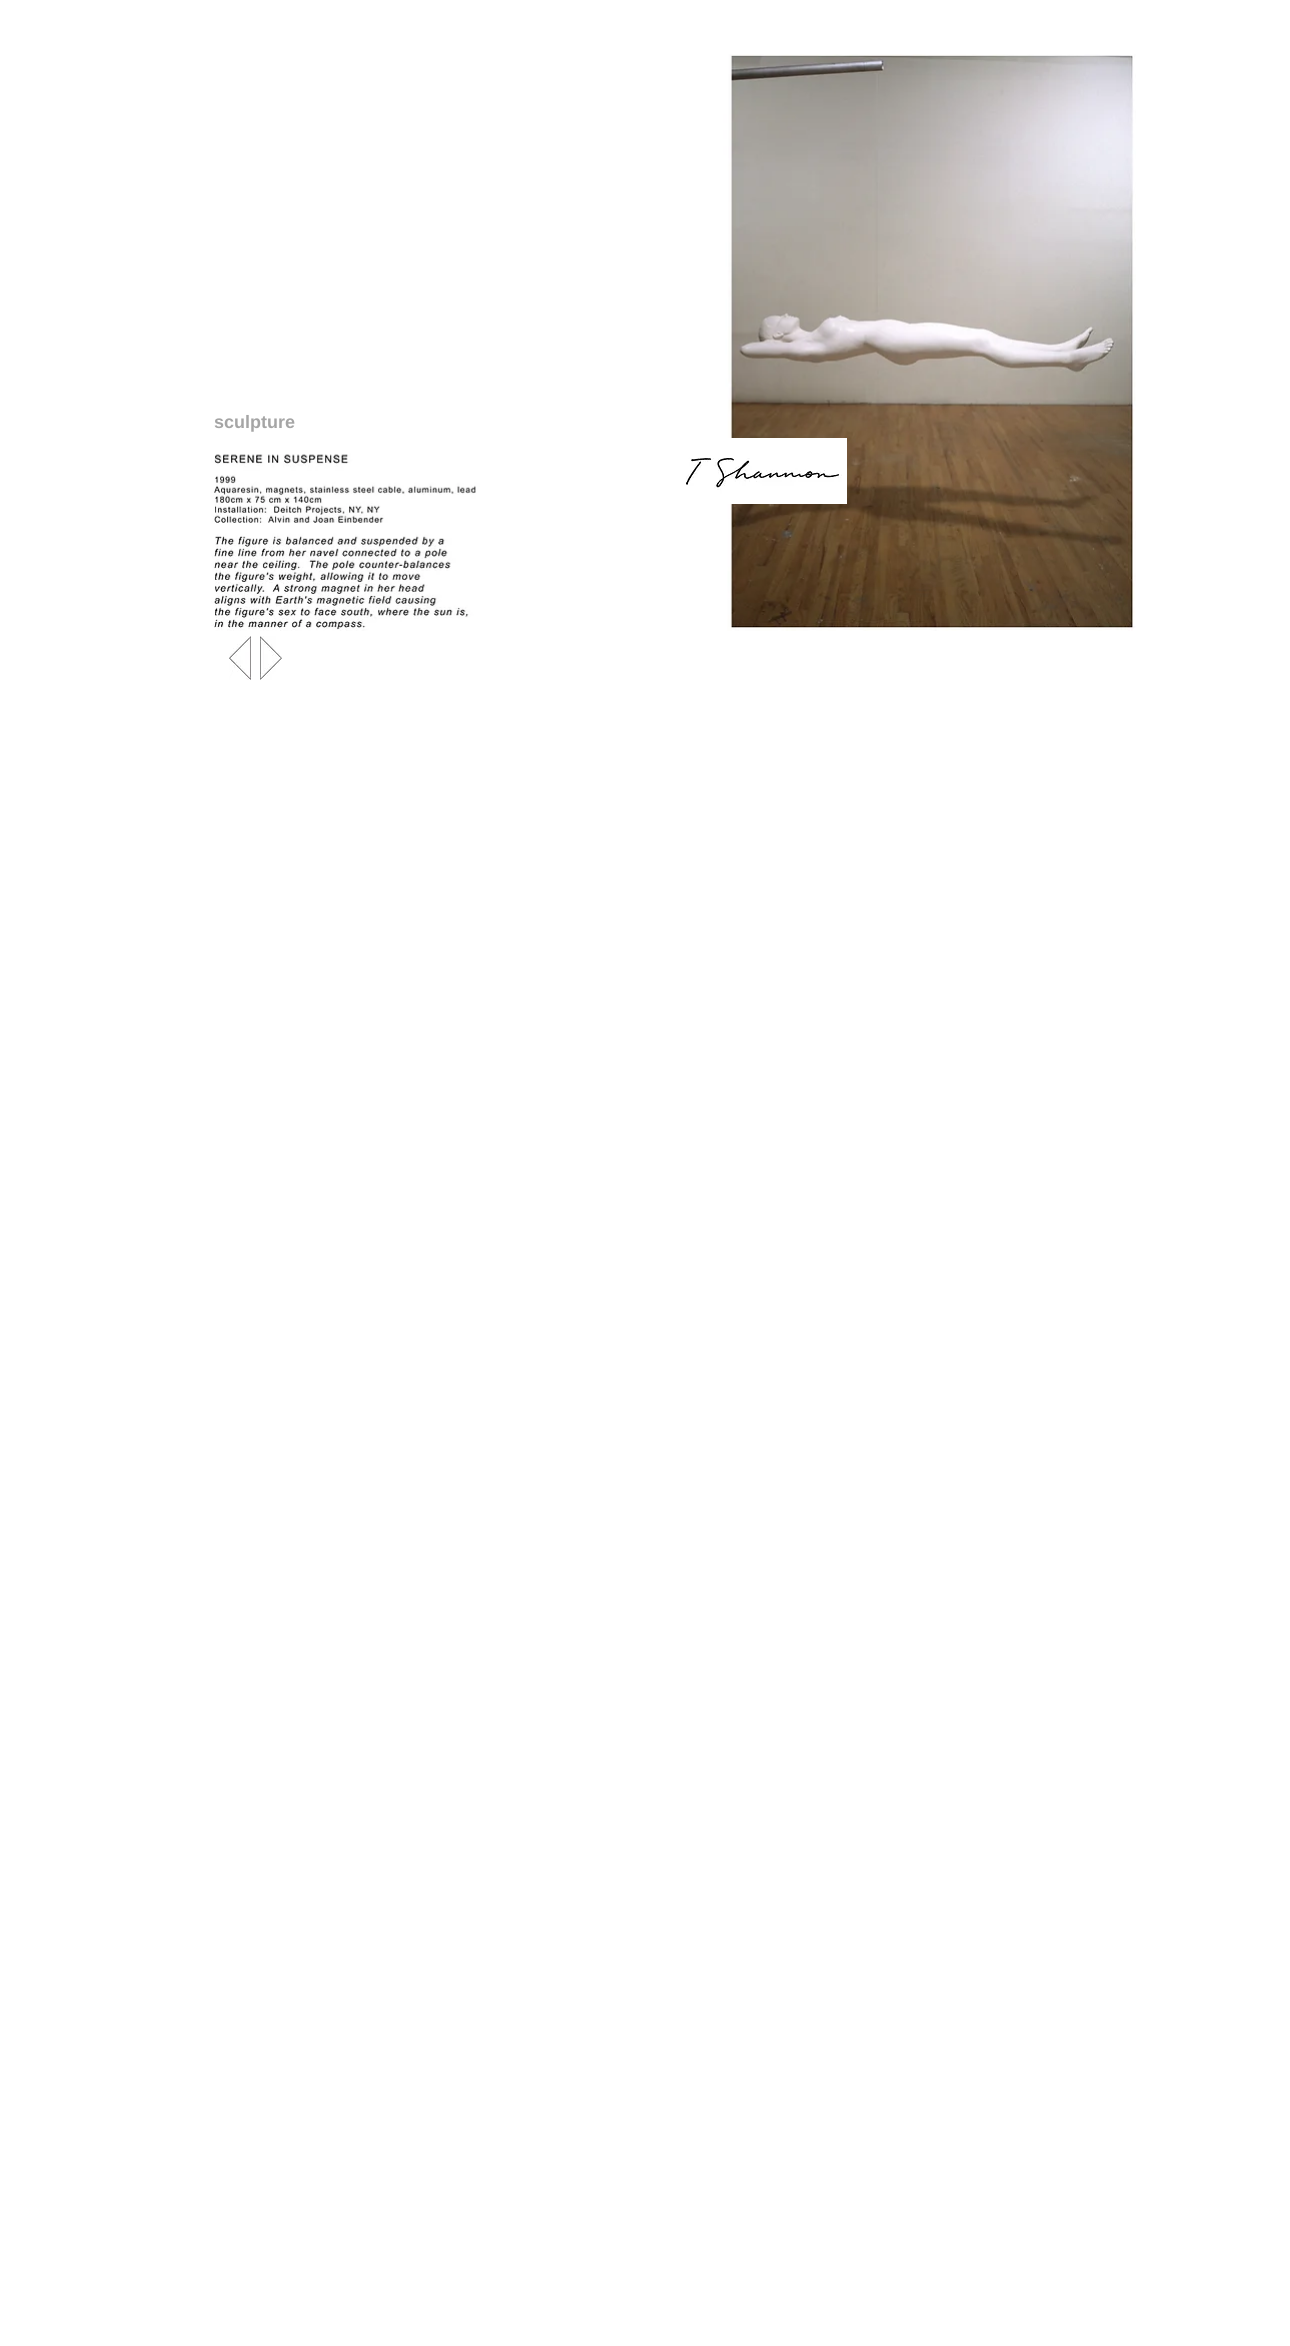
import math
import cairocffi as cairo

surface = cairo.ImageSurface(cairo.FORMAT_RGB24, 1290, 2346)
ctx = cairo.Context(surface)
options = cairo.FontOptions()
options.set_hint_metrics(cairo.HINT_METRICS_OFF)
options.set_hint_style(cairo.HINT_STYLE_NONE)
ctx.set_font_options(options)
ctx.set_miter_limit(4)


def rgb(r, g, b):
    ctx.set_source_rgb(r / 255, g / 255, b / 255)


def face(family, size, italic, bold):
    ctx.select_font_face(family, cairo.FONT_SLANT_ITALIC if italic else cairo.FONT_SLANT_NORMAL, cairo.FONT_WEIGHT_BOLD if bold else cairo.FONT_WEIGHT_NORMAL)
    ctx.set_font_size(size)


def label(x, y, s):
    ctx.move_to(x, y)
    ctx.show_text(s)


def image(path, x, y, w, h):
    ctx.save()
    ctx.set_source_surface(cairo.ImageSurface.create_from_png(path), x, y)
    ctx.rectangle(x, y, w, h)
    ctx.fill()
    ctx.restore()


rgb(255, 255, 255)
ctx.paint()
image('image0.png', 211, 54, 925, 577)
face('Liberation Sans', 18, 0, 1)
rgb(165, 165, 165)
label(214, 428, 'sculpture')
image('image1.png', 229, 636, 22, 44)
image('image2.png', 260, 636, 22, 44)
image('image3.png', 686, 438, 161, 66)
surface.write_to_png('render.png')
